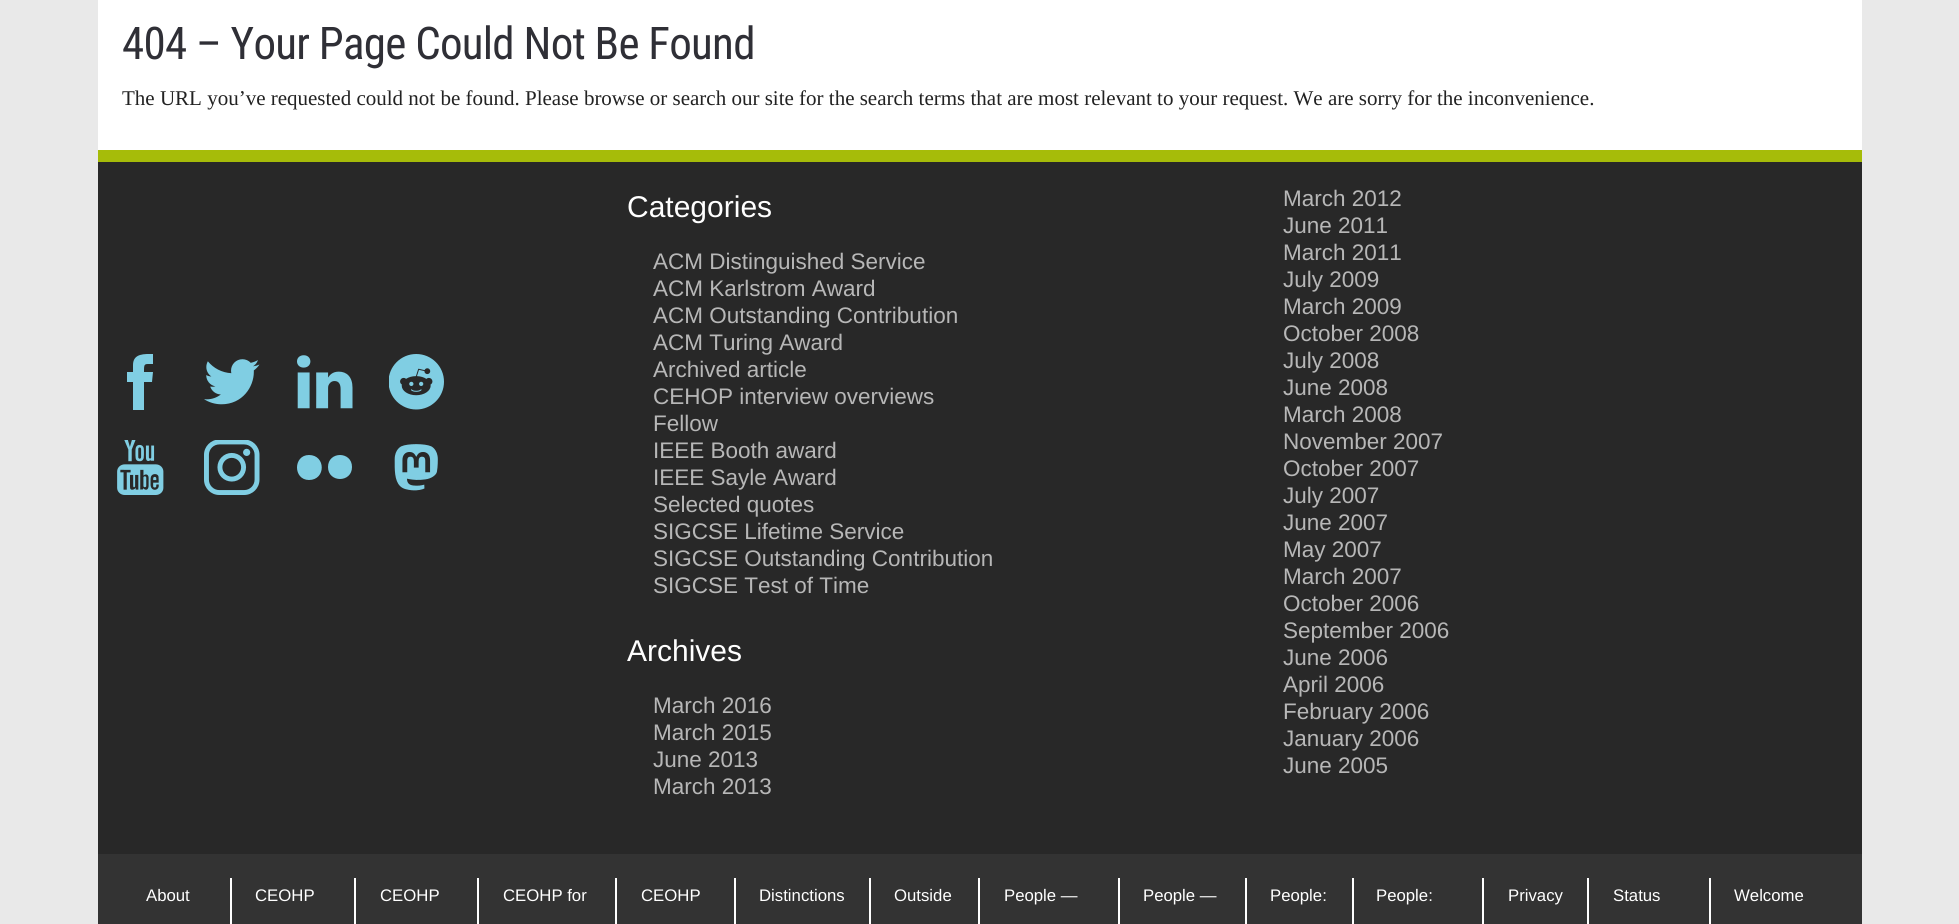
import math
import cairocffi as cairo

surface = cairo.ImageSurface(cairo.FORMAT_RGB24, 1959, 924)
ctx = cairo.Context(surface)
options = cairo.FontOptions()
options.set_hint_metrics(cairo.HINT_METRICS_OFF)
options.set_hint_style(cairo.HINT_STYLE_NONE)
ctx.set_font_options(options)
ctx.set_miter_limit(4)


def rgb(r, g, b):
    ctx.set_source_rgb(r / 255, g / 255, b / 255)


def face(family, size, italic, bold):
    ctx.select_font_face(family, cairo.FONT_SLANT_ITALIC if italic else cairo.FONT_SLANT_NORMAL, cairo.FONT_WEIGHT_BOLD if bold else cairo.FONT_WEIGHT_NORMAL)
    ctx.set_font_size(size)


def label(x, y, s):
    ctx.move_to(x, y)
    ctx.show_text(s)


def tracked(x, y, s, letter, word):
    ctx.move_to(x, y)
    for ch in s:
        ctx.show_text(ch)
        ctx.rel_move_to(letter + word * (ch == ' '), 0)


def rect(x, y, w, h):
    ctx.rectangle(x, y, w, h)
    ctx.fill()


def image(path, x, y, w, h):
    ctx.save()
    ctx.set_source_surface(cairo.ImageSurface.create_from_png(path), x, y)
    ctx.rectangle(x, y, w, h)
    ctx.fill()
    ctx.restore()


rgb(233, 233, 233)
ctx.paint()
rgb(255, 255, 255)
rect(98, 0, 1764, 150)
face('Roboto Condensed', 45, 0, 0)
rgb(47, 47, 54)
tracked(122, 59, '404 – Your Page Could Not Be Found', -0.75, 0)
face('Liberation Serif', 21, 0, 0)
rgb(34, 34, 34)
label(122, 105, 'The URL you’ve requested could not be found. Please browse or search our site for the search terms that are most relevant to your request. We are sorry for the inconvenience.')
rgb(40, 40, 40)
rect(98, 162, 1764, 692)
rgb(166, 188, 9)
rect(98, 150, 1764, 12)
rgb(128, 206, 227)
ctx.new_path()
ctx.move_to(133, 365)
ctx.line_to(133, 372)
ctx.line_to(127, 372)
ctx.line_to(127, 382)
ctx.line_to(133, 382)
ctx.line_to(133, 410)
ctx.line_to(144, 410)
ctx.line_to(144, 382)
ctx.line_to(152, 382)
ctx.line_to(153, 372)
ctx.line_to(144, 372)
ctx.curve_to(144, 363, 144, 364, 153, 364)
ctx.line_to(153, 354)
ctx.curve_to(145, 354, 133, 353, 133, 365)
ctx.close_path()
ctx.fill()
image('image0.png', 204, 359, 56, 46)
image('image1.png', 297, 355, 56, 54)
image('image2.png', 389, 354, 55, 56)
image('image3.png', 117, 440, 47, 55)
image('image4.png', 204, 440, 56, 55)
ctx.new_path()
ctx.move_to(352, 467)
ctx.curve_to(352, 483, 328, 483, 328, 467)
ctx.curve_to(328, 451, 352, 451, 352, 467)
ctx.close_path()
ctx.move_to(309, 455)
ctx.curve_to(293, 455, 293, 480, 309, 480)
ctx.curve_to(326, 480, 326, 455, 309, 455)
ctx.close_path()
ctx.fill()
image('image5.png', 394, 444, 44, 47)
face('Liberation Sans', 22.5, 0, 0)
rgb(183, 183, 183)
label(1283, 206, 'March 2012')
label(1283, 233, 'June 2011')
label(1283, 260, 'March 2011')
label(1283, 287, 'July 2009')
label(1283, 314, 'March 2009')
label(1283, 341, 'October 2008')
label(1283, 368, 'July 2008')
label(1283, 395, 'June 2008')
label(1283, 422, 'March 2008')
label(1283, 449, 'November 2007')
label(1283, 476, 'October 2007')
label(1283, 503, 'July 2007')
label(1283, 530, 'June 2007')
label(1283, 557, 'May 2007')
label(1283, 584, 'March 2007')
label(1283, 611, 'October 2006')
label(1283, 638, 'September 2006')
label(1283, 665, 'June 2006')
label(1283, 692, 'April 2006')
label(653, 713, 'March 2016')
label(1283, 719, 'February 2006')
label(653, 740, 'March 2015')
label(1283, 746, 'January 2006')
label(653, 767, 'June 2013')
label(1283, 773, 'June 2005')
label(653, 794, 'March 2013')
face('Liberation Sans', 30, 0, 0)
rgb(255, 255, 255)
label(627, 217, 'Categories')
face('Liberation Sans', 22.5, 0, 0)
rgb(183, 183, 183)
label(653, 269, 'ACM Distinguished Service')
label(653, 296, 'ACM Karlstrom Award')
label(653, 323, 'ACM Outstanding Contribution')
label(653, 350, 'ACM Turing Award')
label(653, 377, 'Archived article')
label(653, 404, 'CEHOP interview overviews')
label(653, 431, 'Fellow')
label(653, 458, 'IEEE Booth award')
label(653, 485, 'IEEE Sayle Award')
label(653, 512, 'Selected quotes')
label(653, 539, 'SIGCSE Lifetime Service')
label(653, 566, 'SIGCSE Outstanding Contribution')
label(653, 593, 'SIGCSE Test of Time')
face('Liberation Sans', 30, 0, 0)
rgb(255, 255, 255)
label(627, 661, 'Archives')
rgb(51, 51, 51)
rect(98, 854, 1764, 70)
rgb(255, 255, 255)
rect(230, 878, 2, 46)
face('Liberation Sans', 16.75, 0, 0)
label(146, 901, 'About')
rect(354, 878, 2, 46)
label(255, 901, 'CEOHP')
rect(477, 878, 2, 46)
label(380, 901, 'CEOHP')
rect(615, 878, 2, 46)
label(503, 901, 'CEOHP for')
rect(734, 878, 2, 46)
label(641, 901, 'CEOHP')
rect(869, 878, 2, 46)
label(759, 901, 'Distinctions')
rect(978, 878, 2, 46)
label(894, 901, 'Outside')
rect(1118, 878, 2, 46)
label(1004, 901, 'People —')
rect(1245, 878, 2, 46)
label(1143, 901, 'People —')
rect(1352, 878, 2, 46)
label(1270, 901, 'People:')
rect(1482, 878, 2, 46)
label(1376, 901, 'People:')
rect(1587, 878, 2, 46)
label(1508, 901, 'Privacy')
rect(1709, 878, 2, 46)
label(1613, 901, 'Status')
label(1734, 901, 'Welcome')
surface.write_to_png('render.png')
